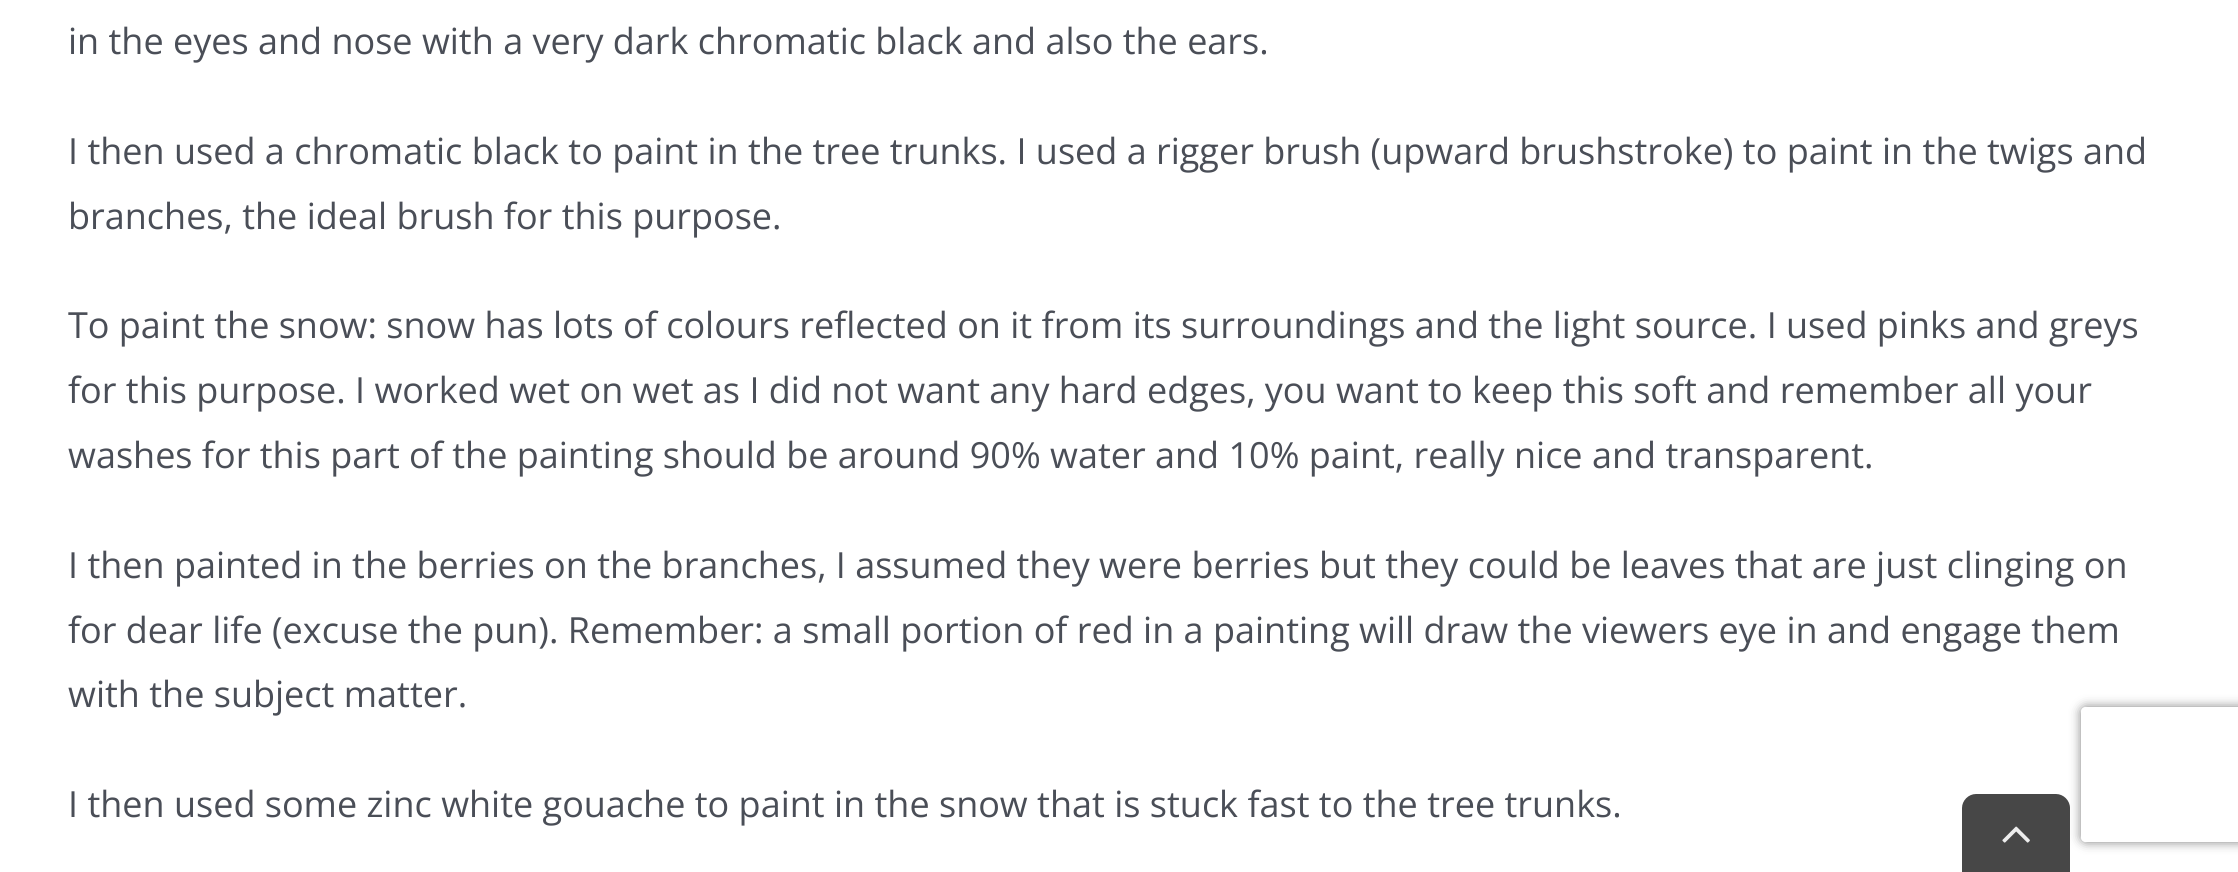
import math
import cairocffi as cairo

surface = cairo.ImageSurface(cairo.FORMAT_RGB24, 2238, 872)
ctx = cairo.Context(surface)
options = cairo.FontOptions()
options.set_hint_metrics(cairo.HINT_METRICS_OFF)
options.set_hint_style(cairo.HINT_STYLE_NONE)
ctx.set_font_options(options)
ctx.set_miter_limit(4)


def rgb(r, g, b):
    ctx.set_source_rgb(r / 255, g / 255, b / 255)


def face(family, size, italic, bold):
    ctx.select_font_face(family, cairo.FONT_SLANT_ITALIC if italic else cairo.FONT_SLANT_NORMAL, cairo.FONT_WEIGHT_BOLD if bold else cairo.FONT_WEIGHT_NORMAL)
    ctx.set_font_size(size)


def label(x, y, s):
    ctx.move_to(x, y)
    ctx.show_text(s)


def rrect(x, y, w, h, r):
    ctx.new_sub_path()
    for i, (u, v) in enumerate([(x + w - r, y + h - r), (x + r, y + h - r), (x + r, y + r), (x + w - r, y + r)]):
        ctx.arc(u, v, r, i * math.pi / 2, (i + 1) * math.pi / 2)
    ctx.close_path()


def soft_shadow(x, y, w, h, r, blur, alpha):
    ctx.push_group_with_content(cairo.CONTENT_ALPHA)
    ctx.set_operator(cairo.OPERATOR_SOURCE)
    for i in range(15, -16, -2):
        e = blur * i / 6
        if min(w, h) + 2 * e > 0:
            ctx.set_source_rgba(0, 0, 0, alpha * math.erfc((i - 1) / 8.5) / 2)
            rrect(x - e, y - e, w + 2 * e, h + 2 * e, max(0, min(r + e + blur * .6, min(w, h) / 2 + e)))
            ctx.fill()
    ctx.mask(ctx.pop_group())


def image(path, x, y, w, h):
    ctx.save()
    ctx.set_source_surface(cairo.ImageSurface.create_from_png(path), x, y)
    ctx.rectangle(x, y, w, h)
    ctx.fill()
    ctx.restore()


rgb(255, 255, 255)
ctx.paint()
face('Open Sans', 36, 0, 0)
rgb(74, 78, 87)
label(68, 54, 'in the eyes and nose with a very dark chromatic black and also the ears.')
label(68, 164, 'I then used a chromatic black to paint in the tree trunks. I used a rigger brush (upward brushstroke) to paint in the twigs and')
label(68, 229, 'branches, the ideal brush for this purpose.')
label(68, 338, 'To paint the snow: snow has lots of colours reflected on it from its surroundings and the light source. I used pinks and greys')
label(68, 403, 'for this purpose. I worked wet on wet as I did not want any hard edges, you want to keep this soft and remember all your')
label(68, 468, 'washes for this part of the painting should be around 90% water and 10% paint, really nice and transparent.')
label(68, 578, 'I then painted in the berries on the branches, I assumed they were berries but they could be leaves that are just clinging on')
label(68, 643, 'for dear life (excuse the pun). Remember: a small portion of red in a painting will draw the viewers eye in and engage them')
label(68, 707, 'with the subject matter.')
label(68, 817, 'I then used some zinc white gouache to paint in the snow that is stuck fast to the tree trunks.')
ctx.save()
ctx.set_fill_rule(cairo.FILL_RULE_EVEN_ODD)
ctx.new_path()
ctx.move_to(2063, 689)
ctx.line_to(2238, 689)
ctx.line_to(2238, 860)
ctx.line_to(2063, 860)
ctx.close_path()
ctx.move_to(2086, 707)
ctx.line_to(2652, 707)
ctx.curve_to(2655, 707, 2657, 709, 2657, 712)
ctx.line_to(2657, 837)
ctx.curve_to(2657, 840, 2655, 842, 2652, 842)
ctx.line_to(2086, 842)
ctx.curve_to(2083, 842, 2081, 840, 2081, 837)
ctx.line_to(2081, 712)
ctx.curve_to(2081, 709, 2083, 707, 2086, 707)
ctx.close_path()
ctx.clip()
rgb(128, 128, 128)
soft_shadow(2081, 707, 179, 135, 5, 5.5, 1)
ctx.restore()
rgb(71, 71, 71)
ctx.new_path()
ctx.move_to(1976, 794)
ctx.line_to(2056, 794)
ctx.curve_to(2063.5, 794, 2070, 800.5, 2070, 808)
ctx.line_to(2070, 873)
ctx.line_to(1962, 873)
ctx.line_to(1962, 808)
ctx.curve_to(1962, 800.5, 1968.5, 794, 1976, 794)
ctx.close_path()
ctx.fill()
image('image0.png', 2002, 826, 28, 17)
surface.write_to_png('render.png')
